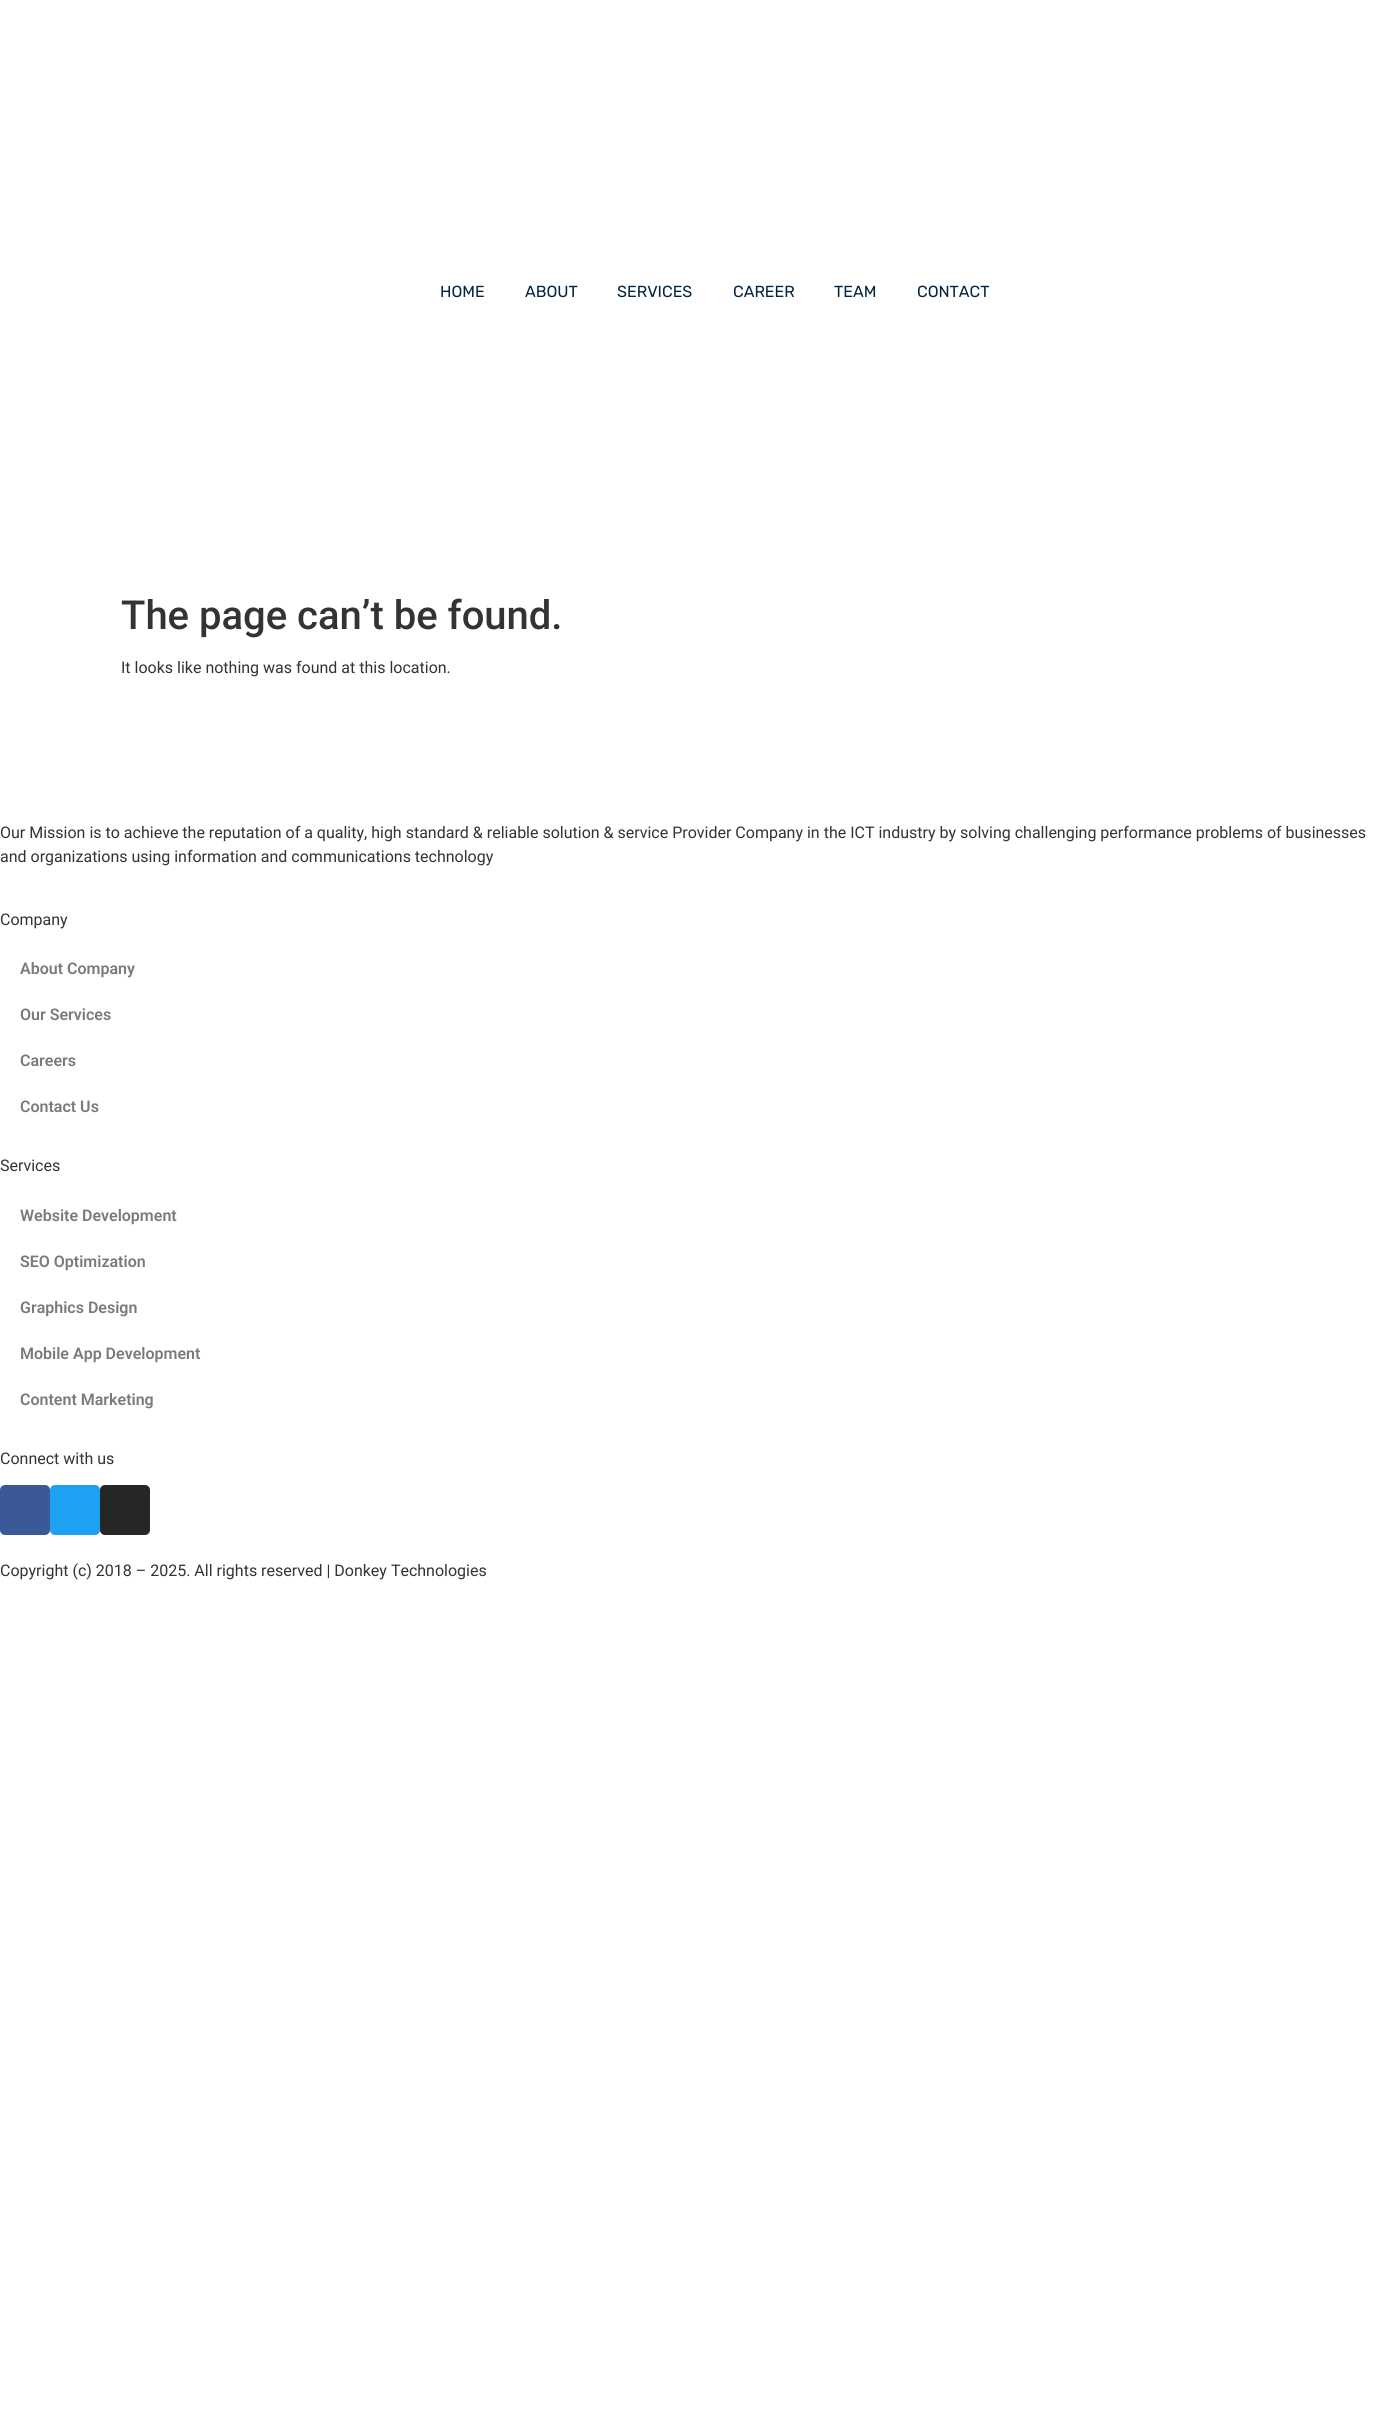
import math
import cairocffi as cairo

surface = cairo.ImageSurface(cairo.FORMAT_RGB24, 1382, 2429)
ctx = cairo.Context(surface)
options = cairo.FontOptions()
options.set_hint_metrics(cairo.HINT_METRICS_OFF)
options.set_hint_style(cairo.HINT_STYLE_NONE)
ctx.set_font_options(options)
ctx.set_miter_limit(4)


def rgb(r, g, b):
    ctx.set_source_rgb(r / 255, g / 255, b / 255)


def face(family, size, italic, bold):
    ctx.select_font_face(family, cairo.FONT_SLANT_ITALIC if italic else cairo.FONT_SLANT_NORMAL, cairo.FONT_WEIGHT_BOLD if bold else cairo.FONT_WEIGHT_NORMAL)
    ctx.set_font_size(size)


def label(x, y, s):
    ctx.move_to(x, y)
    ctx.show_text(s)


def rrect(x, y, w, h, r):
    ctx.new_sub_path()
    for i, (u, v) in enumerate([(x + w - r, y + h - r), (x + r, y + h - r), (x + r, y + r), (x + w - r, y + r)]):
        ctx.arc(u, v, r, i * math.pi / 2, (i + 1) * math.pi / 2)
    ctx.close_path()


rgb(255, 255, 255)
ctx.paint()
face('Rubik', 16, 0, 0)
rgb(4, 36, 67)
label(440, 297, 'HOME')
label(525, 297, 'ABOUT')
label(617, 297, 'SERVICES')
label(733, 297, 'CAREER')
label(834, 297, 'TEAM')
label(917, 297, 'CONTACT')
face('Roboto Medium', 40, 0, 0)
rgb(51, 51, 51)
label(121, 629, 'The page can’t be found.')
face('Roboto', 16, 0, 0)
label(121, 673, 'It looks like nothing was found at this location.')
label(0, 838, 'Our Mission is to achieve the reputation of a quality, high standard & reliable solution & service Provider Company in the ICT industry by solving challenging performance problems of businesses')
label(0, 862, 'and organizations using information and communications technology')
label(0, 925, 'Company')
face('Roboto SemiBold', 16, 0, 0)
rgb(122, 122, 122)
label(20, 974, 'About Company')
label(20, 1020, 'Our Services')
label(20, 1066, 'Careers')
label(20, 1112, 'Contact Us')
face('Roboto', 16, 0, 0)
rgb(51, 51, 51)
label(0, 1171, 'Services')
face('Roboto SemiBold', 16, 0, 0)
rgb(122, 122, 122)
label(20, 1221, 'Website Development')
label(20, 1267, 'SEO Optimization')
label(20, 1313, 'Graphics Design')
label(20, 1359, 'Mobile App Development')
label(20, 1405, 'Content Marketing')
face('Roboto', 16, 0, 0)
rgb(51, 51, 51)
label(0, 1464, 'Connect with us')
rgb(59, 89, 152)
rrect(0, 1485, 50, 50, 5)
ctx.fill()
rgb(29, 161, 242)
rrect(50, 1485, 50, 50, 5)
ctx.fill()
rgb(38, 38, 38)
rrect(100, 1485, 50, 50, 5)
ctx.fill()
rgb(51, 51, 51)
label(0, 1576, 'Copyright (c) 2018 – 2025. All rights reserved | Donkey Technologies')
surface.write_to_png('render.png')
